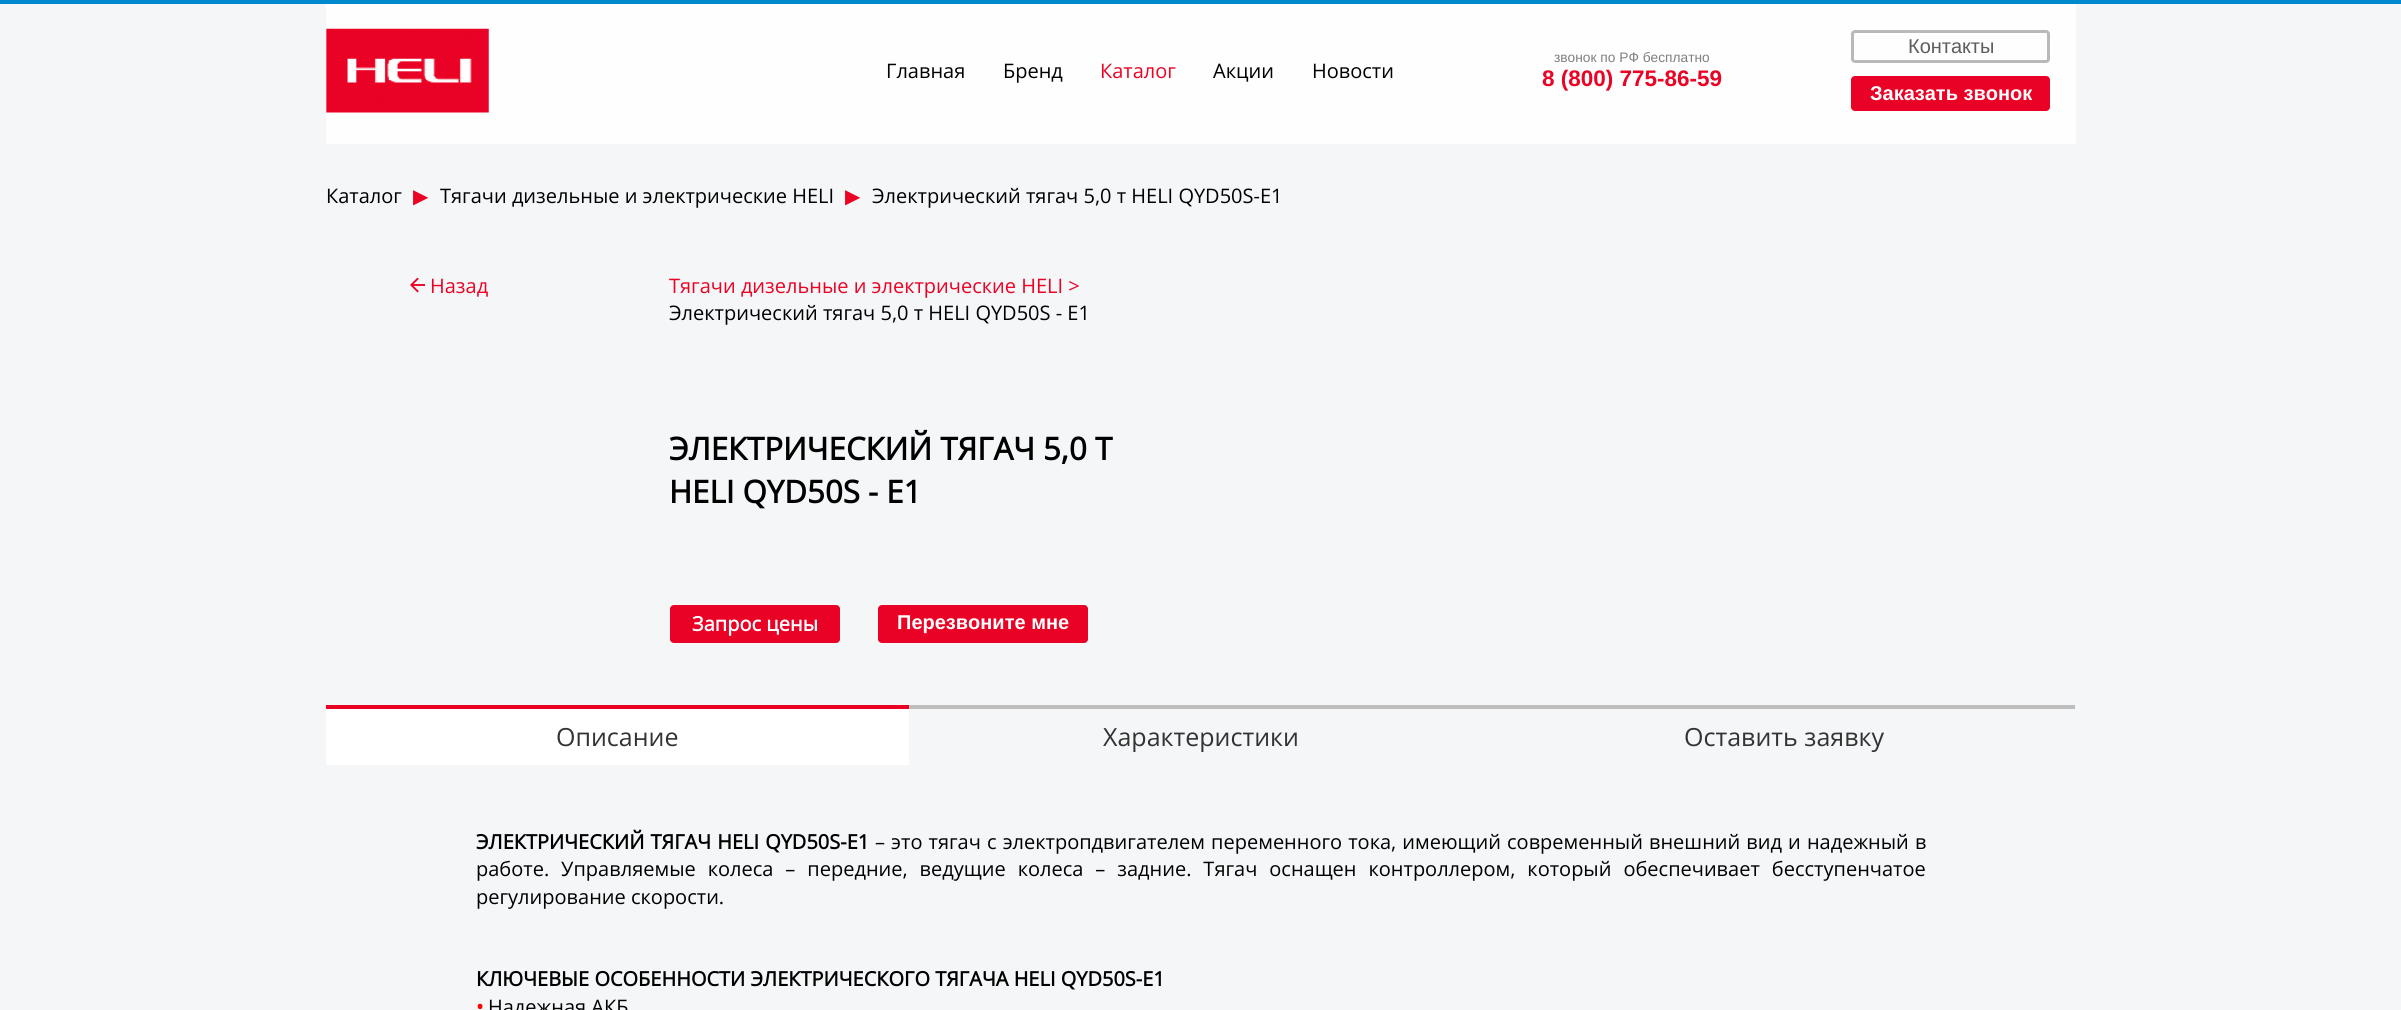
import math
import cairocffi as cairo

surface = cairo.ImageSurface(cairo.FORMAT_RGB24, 2401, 1010)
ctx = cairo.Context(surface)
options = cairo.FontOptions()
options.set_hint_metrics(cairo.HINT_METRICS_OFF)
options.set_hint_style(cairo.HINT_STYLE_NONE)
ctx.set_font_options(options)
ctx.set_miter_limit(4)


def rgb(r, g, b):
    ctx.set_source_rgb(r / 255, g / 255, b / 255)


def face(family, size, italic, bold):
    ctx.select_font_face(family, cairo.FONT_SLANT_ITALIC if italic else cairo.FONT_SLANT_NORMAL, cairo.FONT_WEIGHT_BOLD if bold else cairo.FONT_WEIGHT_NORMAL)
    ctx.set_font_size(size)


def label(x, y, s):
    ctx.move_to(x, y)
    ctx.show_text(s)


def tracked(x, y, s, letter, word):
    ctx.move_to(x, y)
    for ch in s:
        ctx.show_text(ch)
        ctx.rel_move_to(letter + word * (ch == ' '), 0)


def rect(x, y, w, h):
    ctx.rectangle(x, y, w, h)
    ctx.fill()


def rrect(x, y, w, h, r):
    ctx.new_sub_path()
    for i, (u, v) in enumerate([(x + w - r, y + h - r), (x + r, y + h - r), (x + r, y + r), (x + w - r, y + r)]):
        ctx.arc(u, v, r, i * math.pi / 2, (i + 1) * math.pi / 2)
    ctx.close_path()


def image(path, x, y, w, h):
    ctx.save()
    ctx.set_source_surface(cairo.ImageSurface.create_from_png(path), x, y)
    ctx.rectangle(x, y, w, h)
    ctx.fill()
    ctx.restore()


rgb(244, 246, 247)
ctx.paint()
rgb(0, 136, 204)
rect(0, 0, 2401, 4)
rgb(254, 254, 254)
rect(326, 4, 1750, 140)
image('image0.png', 326, 28, 163, 85)
face('Open Sans', 20, 0, 0)
rgb(0, 0, 0)
label(886, 78, 'Главная')
label(1003, 78, 'Бренд')
rgb(234, 3, 37)
label(1100, 78, 'Каталог')
rgb(0, 0, 0)
label(1213, 78, 'Акции')
label(1312, 78, 'Новости')
face('Liberation Sans', 13.75, 0, 0)
rgb(127, 127, 127)
label(1554, 62, 'звонок по РФ бесплатно')
face('Liberation Sans', 22.5, 0, 1)
rgb(234, 3, 37)
label(1542, 86, '8 (800) 775-86-59')
rrect(1852.5, 31.5, 196, 30, 2.5)
rgb(185, 185, 185)
ctx.set_line_width(3)
ctx.stroke()
face('Liberation Sans', 20, 0, 0)
rgb(93, 93, 93)
label(1908, 53, 'Контакты')
rgb(233, 2, 37)
rrect(1851, 76, 199, 35, 4)
ctx.fill()
face('Liberation Sans', 20, 0, 1)
rgb(255, 255, 255)
label(1870, 100, 'Заказать звонок')
face('Open Sans', 20, 0, 0)
rgb(0, 0, 0)
label(326, 203, 'Каталог')
face('DejaVu Sans', 20, 0, 0)
rgb(234, 3, 37)
label(413, 203, '▶')
face('Open Sans', 20, 0, 0)
rgb(0, 0, 0)
label(440, 203, 'Тягачи дизельные и электрические HELI')
face('DejaVu Sans', 20, 0, 0)
rgb(234, 3, 37)
label(845, 203, '▶')
face('Open Sans', 20, 0, 0)
rgb(0, 0, 0)
label(872, 203, 'Электрический тягач 5,0 т HELI QYD50S-E1')
image('image1.png', 410, 278, 15, 15)
rgb(234, 3, 37)
label(430, 293, 'Назад')
label(669, 293, 'Тягачи дизельные и электрические HELI >')
rgb(0, 0, 0)
label(669, 320, 'Электрический тягач 5,0 т HELI QYD50S - E1')
face('Open Sans', 31.25, 0, 1)
label(669, 460, 'ЭЛЕКТРИЧЕСКИЙ ТЯГАЧ 5,0 Т')
label(669, 503, 'HELI QYD50S - E1')
rgb(233, 2, 37)
rrect(670, 605, 170, 38, 4)
ctx.fill()
face('Open Sans', 20, 0, 1)
rgb(255, 255, 255)
label(692, 631, 'Запрос цены')
rgb(233, 2, 37)
rrect(878, 605, 210, 38, 4)
ctx.fill()
face('Liberation Sans', 20, 0, 1)
rgb(255, 255, 255)
label(897, 629, 'Перезвоните мне')
rect(326, 709, 583, 56)
rgb(234, 2, 37)
rect(326, 705, 583, 4)
face('Open Sans', 25, 0, 0)
rgb(51, 51, 51)
label(556, 746, 'Описание')
rgb(190, 190, 190)
rect(909, 705, 1166, 4)
rgb(51, 51, 51)
label(1103, 746, 'Характеристики')
label(1684, 746, 'Оставить заявку')
face('Open Sans', 20, 0, 1)
rgb(0, 0, 0)
tracked(476, 849, 'ЭЛЕКТРИЧЕСКИЙ ТЯГАЧ HELI QYD50S-E1', 0, 0.9)
face('Open Sans', 20, 0, 0)
tracked(875, 849, '– это тягач с электропдвигателем переменного тока, имеющий современный внешний вид и надежный в', 0, 0.9)
tracked(476, 876, 'работе. Управляемые колеса – передние, ведущие колеса – задние. Тягач оснащен контроллером, который обеспечивает бесступенчатое', 0, 6.75)
label(476, 904, 'регулирование скорости.')
face('Open Sans', 20, 0, 1)
label(476, 986, 'КЛЮЧЕВЫЕ ОСОБЕННОСТИ ЭЛЕКТРИЧЕСКОГО ТЯГАЧА HELI QYD50S-E1')
rgb(255, 0, 0)
label(476, 1014, '•')
face('Open Sans', 20, 0, 0)
rgb(0, 0, 0)
label(488, 1014, 'Надежная АКБ')
surface.write_to_png('render.png')
